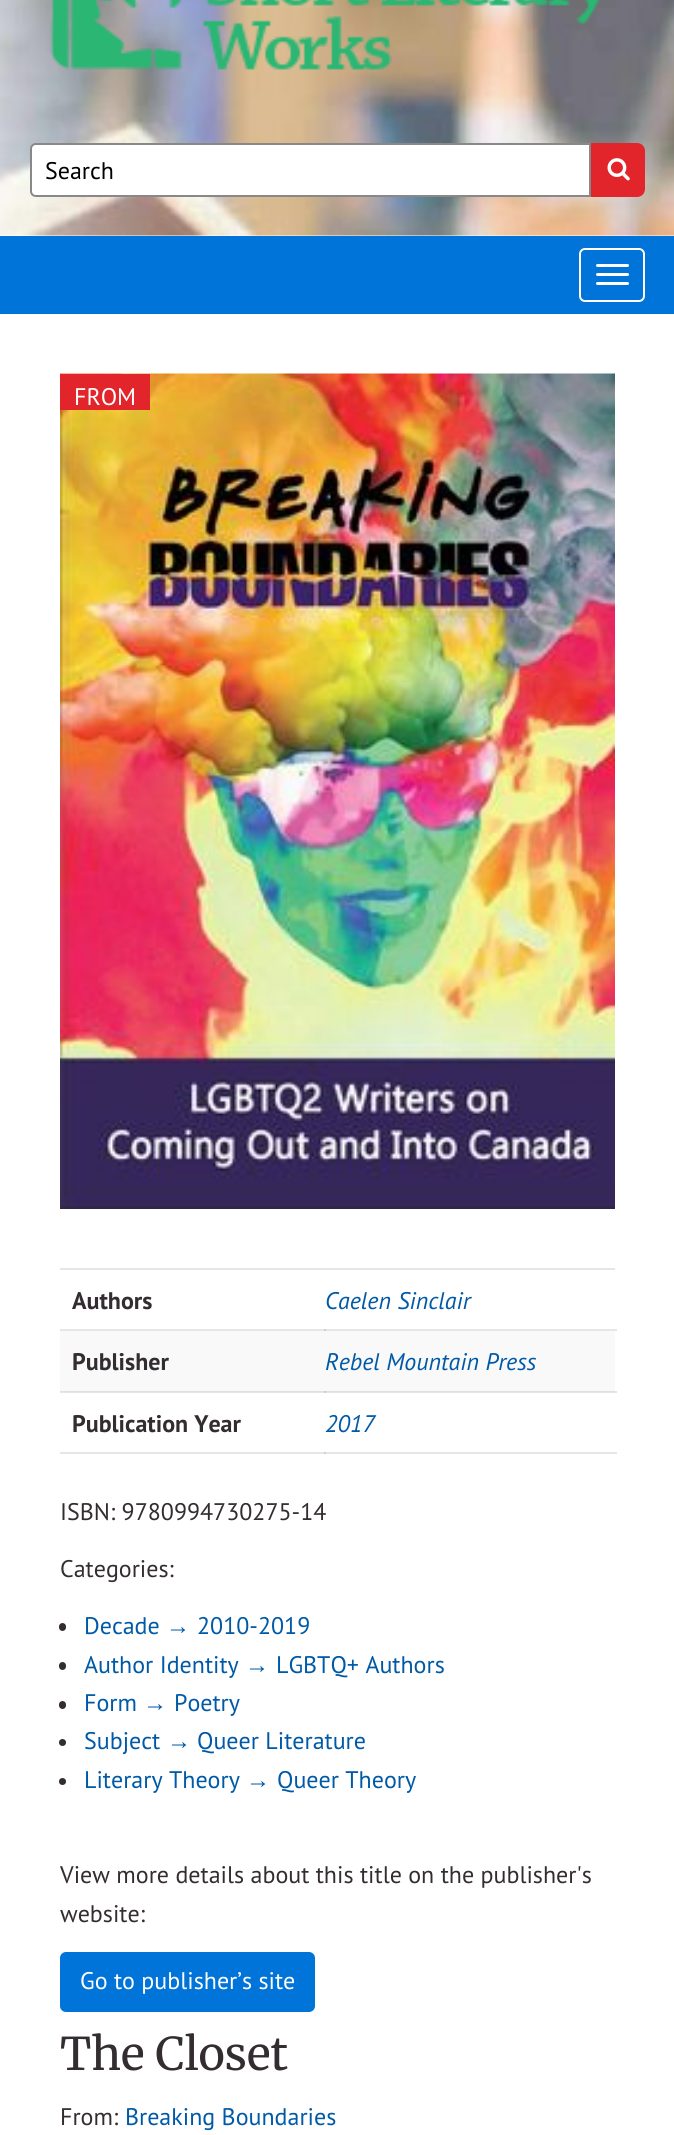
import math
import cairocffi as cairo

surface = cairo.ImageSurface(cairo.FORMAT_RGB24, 674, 2135)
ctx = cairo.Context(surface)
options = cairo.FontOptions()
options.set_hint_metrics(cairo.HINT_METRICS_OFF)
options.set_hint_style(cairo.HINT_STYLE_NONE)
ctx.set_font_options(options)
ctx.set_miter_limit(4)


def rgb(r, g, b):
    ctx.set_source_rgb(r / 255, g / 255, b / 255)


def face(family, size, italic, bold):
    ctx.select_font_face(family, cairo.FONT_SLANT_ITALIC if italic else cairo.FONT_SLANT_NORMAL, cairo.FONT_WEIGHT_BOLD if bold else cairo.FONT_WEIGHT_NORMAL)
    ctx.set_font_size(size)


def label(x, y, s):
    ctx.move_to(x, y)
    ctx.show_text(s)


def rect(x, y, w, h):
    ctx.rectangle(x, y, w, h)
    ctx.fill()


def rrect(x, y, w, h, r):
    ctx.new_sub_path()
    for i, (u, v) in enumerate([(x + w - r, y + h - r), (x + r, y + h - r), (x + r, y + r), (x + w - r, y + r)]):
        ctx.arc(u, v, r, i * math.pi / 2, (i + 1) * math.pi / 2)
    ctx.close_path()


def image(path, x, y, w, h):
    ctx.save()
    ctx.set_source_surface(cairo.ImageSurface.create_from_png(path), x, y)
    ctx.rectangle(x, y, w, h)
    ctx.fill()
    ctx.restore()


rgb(255, 255, 255)
ctx.paint()
rgb(230, 230, 230)
rect(60, 1329, 557, 2)
rect(60, 1392, 266, 1)
rect(324, 1391, 293, 2)
rgb(207, 207, 207)
rect(324, 1392, 2, 1)
rgb(230, 230, 230)
rect(60, 1452, 557, 2)
image('image0.png', 0, 0, 674, 236)
image('image1.png', 50, 0, 550, 70)
rgb(255, 255, 255)
ctx.new_path()
ctx.move_to(36, 144)
ctx.line_to(590, 144)
ctx.line_to(590, 196)
ctx.line_to(36, 196)
ctx.curve_to(33, 196, 31, 194, 31, 191)
ctx.line_to(31, 149)
ctx.curve_to(31, 146, 33, 144, 36, 144)
ctx.close_path()
ctx.fill_preserve()
rgb(136, 136, 136)
ctx.stroke()
face('PT Sans', 24, 0, 0)
rgb(0, 0, 0)
label(45, 179, 'Search')
rgb(226, 37, 42)
ctx.new_path()
ctx.move_to(591, 143)
ctx.line_to(637, 143)
ctx.curve_to(641.5, 143, 645, 146.5, 645, 151)
ctx.line_to(645, 189)
ctx.curve_to(645, 193.5, 641.5, 197, 637, 197)
ctx.line_to(591, 197)
ctx.close_path()
ctx.fill()
image('image2.png', 607, 158, 23, 23)
rgb(0, 116, 217)
rect(0, 236, 674, 78)
rrect(580, 249, 64, 52, 5)
rgb(255, 255, 255)
ctx.stroke()
rrect(596, 264, 33, 3, 1.5)
ctx.fill()
rrect(596, 273, 33, 3, 1.5)
ctx.fill()
rrect(596, 282, 33, 3, 1.5)
ctx.fill()
image('image3.png', 60, 373, 555, 836)
rgb(226, 37, 42)
rect(60, 374, 90, 36)
rgb(255, 255, 255)
label(74, 405, 'FROM')
rgb(230, 230, 230)
rect(60, 1268, 555, 2)
face('PT Sans', 24, 0, 1)
rgb(51, 45, 49)
label(72, 1309, 'Authors')
rgb(207, 207, 207)
rect(324, 1329, 2, 2)
face('PT Sans', 24, 1, 0)
rgb(0, 89, 166)
label(325, 1309, 'Caelen Sinclair')
rgb(249, 249, 249)
rect(60, 1331, 555, 60)
rgb(224, 224, 224)
rect(60, 1391, 555, 1)
rgb(202, 202, 202)
rect(324, 1391, 2, 1)
face('PT Sans', 24, 0, 1)
rgb(51, 45, 49)
label(72, 1370, 'Publisher')
face('PT Sans', 24, 1, 0)
rgb(0, 89, 166)
label(325, 1370, 'Rebel Mountain Press')
face('PT Sans', 24, 0, 1)
rgb(51, 45, 49)
label(72, 1432, 'Publication Year')
rgb(207, 207, 207)
rect(324, 1452, 2, 2)
face('PT Sans', 24, 1, 0)
rgb(0, 89, 166)
label(325, 1432, '2017')
face('PT Sans', 24, 0, 0)
rgb(51, 45, 49)
label(60, 1520, 'ISBN: 9780994730275-14')
label(60, 1577, 'Categories:')
rrect(59, 1623, 7, 8, 3.5)
ctx.fill()
rgb(0, 89, 166)
label(84, 1634, 'Decade')
face('Liberation Sans', 24, 0, 0)
label(166, 1634, '→')
face('PT Sans', 24, 0, 0)
label(197, 1634, '2010-2019')
rgb(51, 45, 49)
rrect(59, 1662, 7, 8, 3.5)
ctx.fill()
rgb(0, 89, 166)
label(84, 1673, 'Author Identity')
face('Liberation Sans', 24, 0, 0)
label(245, 1673, '→')
face('PT Sans', 24, 0, 0)
label(276, 1673, 'LGBTQ+ Authors')
rgb(51, 45, 49)
rrect(59, 1701, 7, 8, 3.5)
ctx.fill()
rgb(0, 89, 166)
label(84, 1711, 'Form')
face('Liberation Sans', 24, 0, 0)
label(143, 1711, '→')
face('PT Sans', 24, 0, 0)
label(174, 1711, 'Poetry')
rgb(51, 45, 49)
ctx.new_path()
ctx.arc(62.5, 1742.5, 3.5, 0, 2 * math.pi)
ctx.fill()
rgb(0, 89, 166)
label(84, 1749, 'Subject')
face('Liberation Sans', 24, 0, 0)
label(167, 1749, '→')
face('PT Sans', 24, 0, 0)
label(197, 1749, 'Queer Literature')
rgb(51, 45, 49)
ctx.new_path()
ctx.arc(62.5, 1781.5, 3.5, 0, 2 * math.pi)
ctx.fill()
rgb(0, 89, 166)
label(84, 1788, 'Literary Theory')
face('Liberation Sans', 24, 0, 0)
label(246, 1788, '→')
face('PT Sans', 24, 0, 0)
label(277, 1788, 'Queer Theory')
rgb(51, 45, 49)
label(60, 1883, 'View more details about this title on the publisher\'s')
label(60, 1922, 'website:')
rgb(0, 116, 217)
rrect(61, 1953, 253, 58, 5)
ctx.fill_preserve()
ctx.stroke()
rgb(255, 255, 255)
label(80, 1989, 'Go to publisher’s site')
face('Merriweather', 45, 0, 0)
rgb(51, 45, 49)
label(60, 2070, 'The Closet')
face('PT Sans', 24, 0, 0)
label(60, 2125, 'From:')
rgb(0, 89, 166)
label(125, 2125, 'Breaking Boundaries')
surface.write_to_png('render.png')
